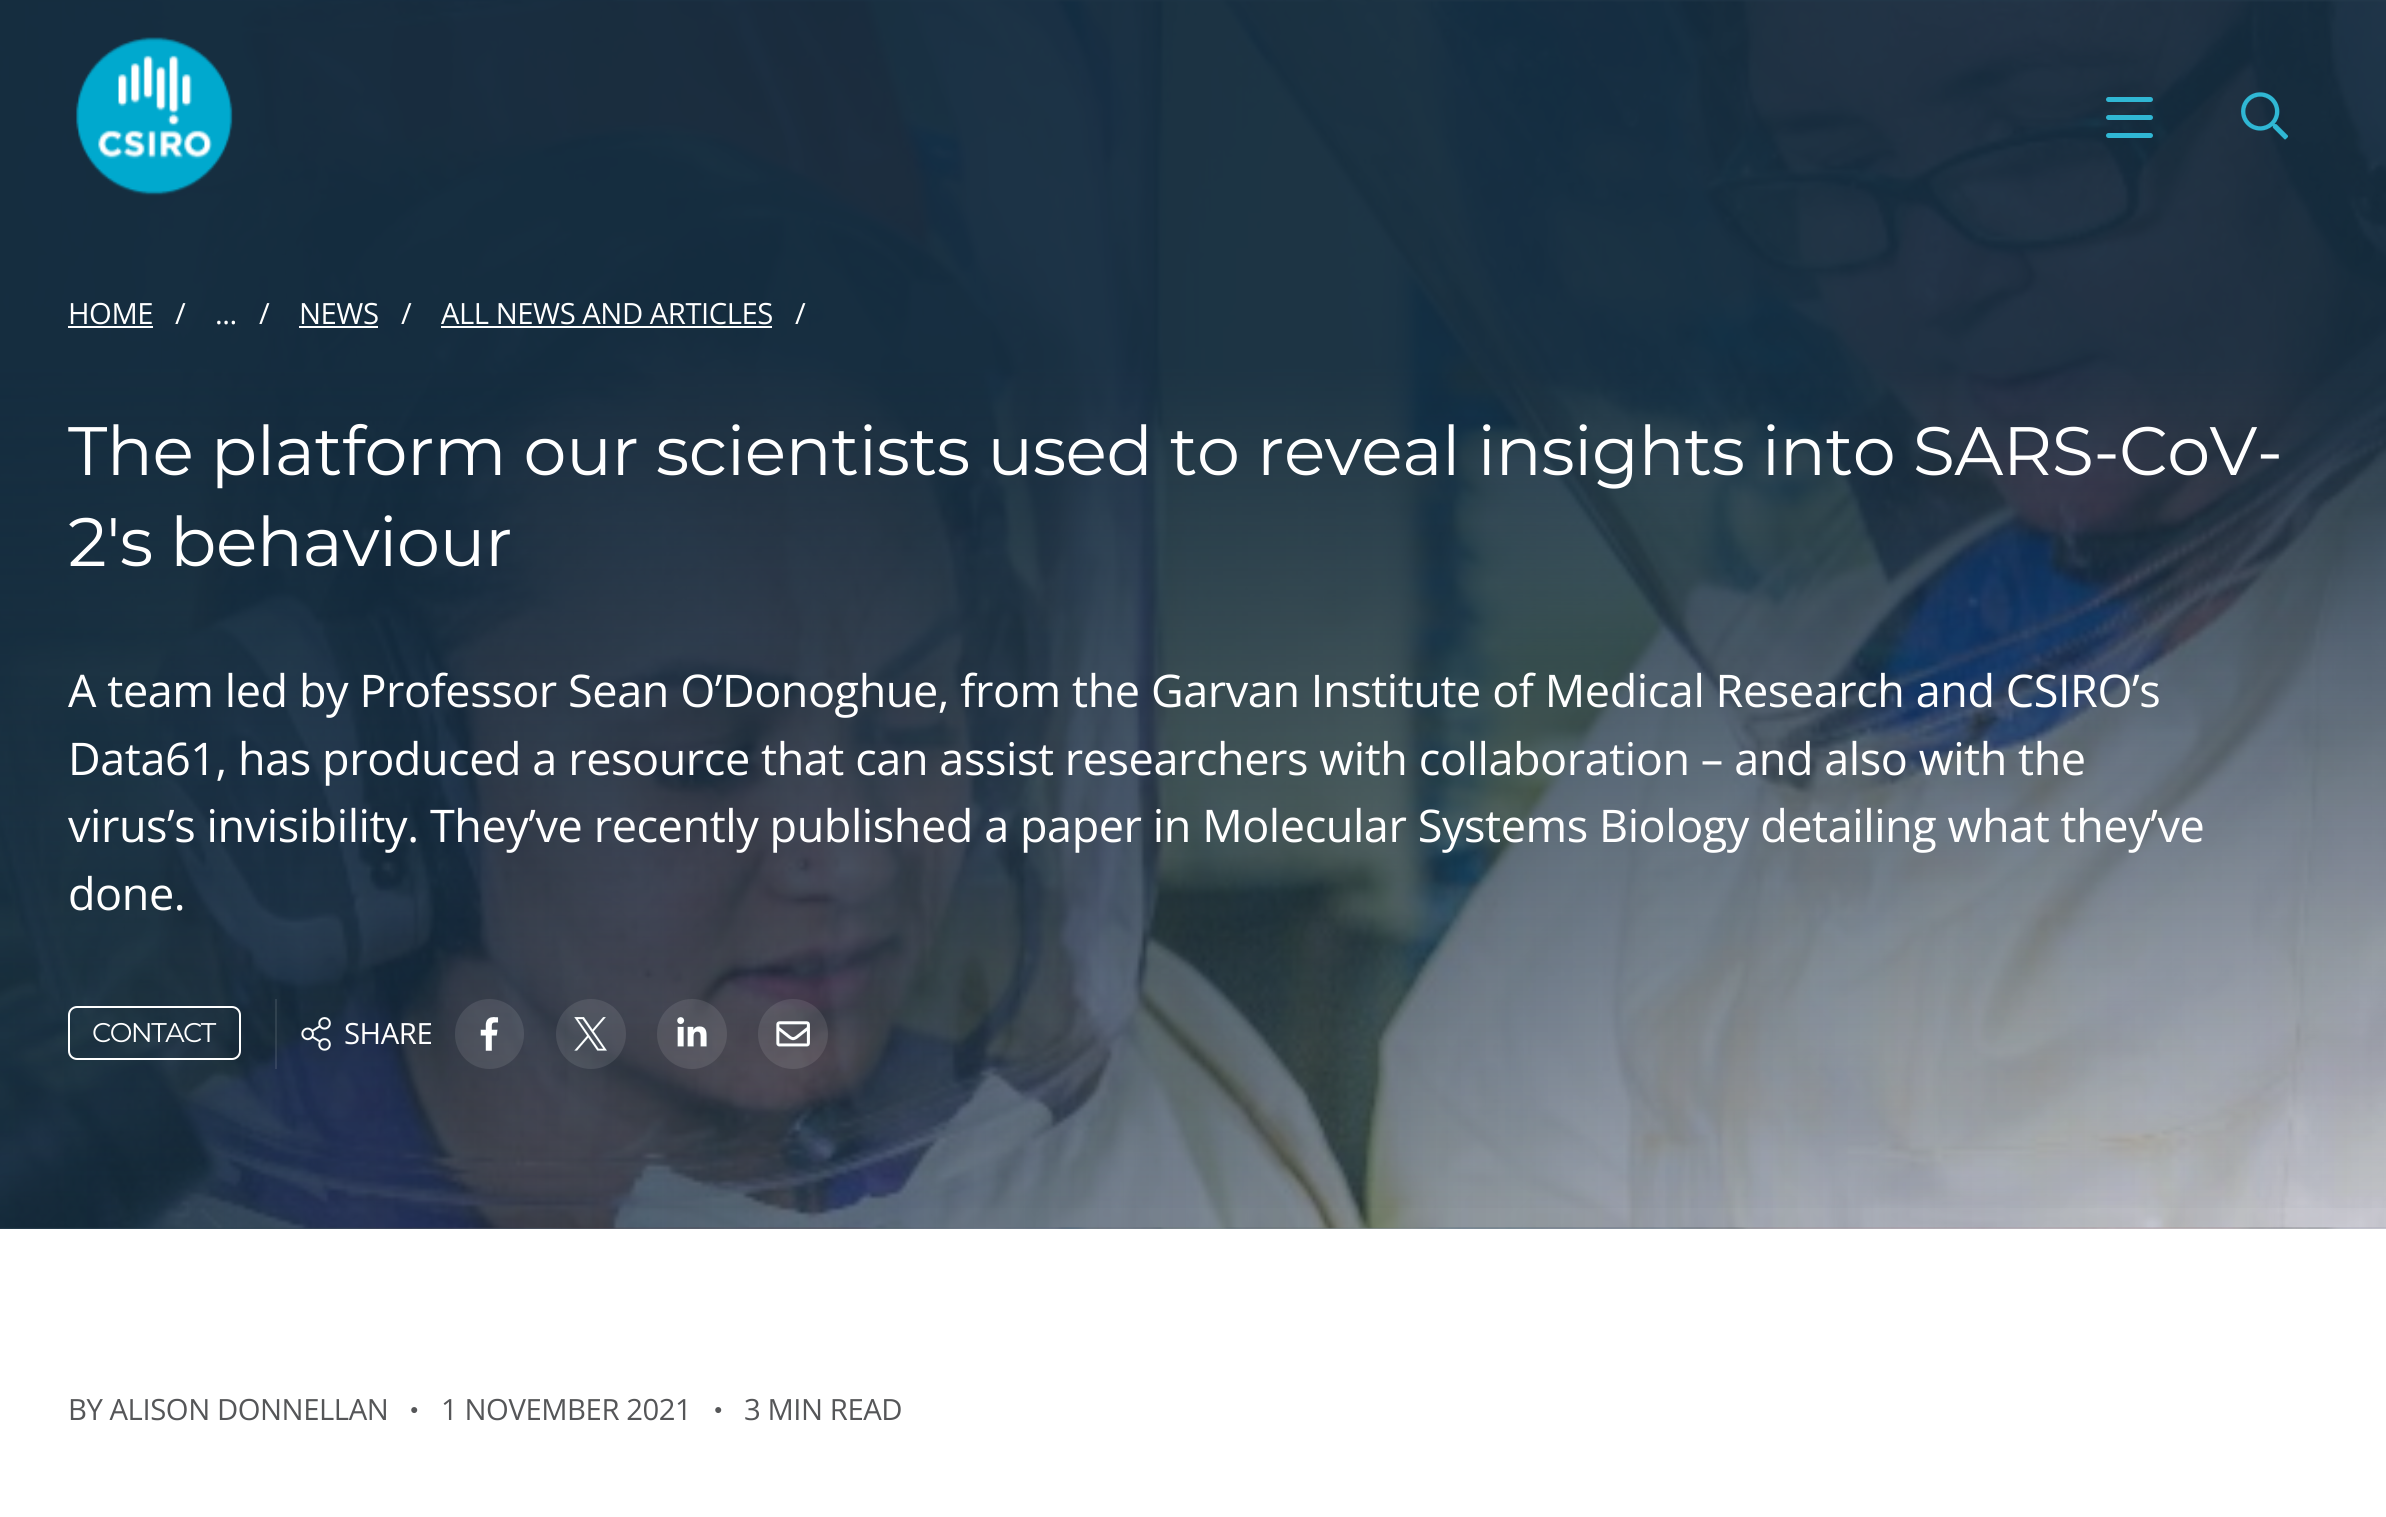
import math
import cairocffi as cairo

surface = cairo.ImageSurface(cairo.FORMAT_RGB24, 2386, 1517)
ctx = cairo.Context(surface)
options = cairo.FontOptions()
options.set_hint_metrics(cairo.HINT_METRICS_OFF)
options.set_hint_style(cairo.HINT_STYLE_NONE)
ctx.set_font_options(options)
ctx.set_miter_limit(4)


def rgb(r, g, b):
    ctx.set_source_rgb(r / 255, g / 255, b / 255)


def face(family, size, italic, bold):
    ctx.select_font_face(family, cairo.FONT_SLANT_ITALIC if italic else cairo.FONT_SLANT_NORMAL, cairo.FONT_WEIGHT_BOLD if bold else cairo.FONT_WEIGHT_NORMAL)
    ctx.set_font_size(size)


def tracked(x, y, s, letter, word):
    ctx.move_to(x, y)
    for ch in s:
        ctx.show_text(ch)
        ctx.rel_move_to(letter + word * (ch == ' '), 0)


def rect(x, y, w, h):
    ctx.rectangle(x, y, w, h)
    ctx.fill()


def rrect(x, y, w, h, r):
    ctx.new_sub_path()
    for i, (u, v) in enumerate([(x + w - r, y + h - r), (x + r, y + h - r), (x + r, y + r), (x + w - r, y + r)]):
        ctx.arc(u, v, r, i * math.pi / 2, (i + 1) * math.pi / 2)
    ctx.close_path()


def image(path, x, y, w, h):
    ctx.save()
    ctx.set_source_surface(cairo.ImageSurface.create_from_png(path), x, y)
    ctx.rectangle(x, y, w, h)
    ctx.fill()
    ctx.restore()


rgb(255, 255, 255)
ctx.paint()
image('image2.png', 0, 0, 2386, 1229)
gradient = cairo.LinearGradient(0, 614, 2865, 614)
gradient.add_color_stop_rgba(0, 0.078, 0.173, 0.247, 0.9)
gradient.add_color_stop_rgba(1, 0.078, 0.173, 0.247, 0)
ctx.set_source(gradient)
rect(0, 0, 2386, 1229)
gradient = cairo.LinearGradient(1194, 1229, 1194, 0)
gradient.add_color_stop_rgba(0, 0.078, 0.173, 0.247, 0)
gradient.add_color_stop_rgba(0.7, 0.078, 0.173, 0.247, 0.9)
ctx.set_source(gradient)
rect(0, 0, 2386, 1208)
image('image0.png', 76, 37, 157, 159)
rgb(48, 183, 212)
rrect(2106, 115, 47, 5, 2.5)
ctx.fill()
rrect(2106, 97, 47, 5, 2.5)
ctx.fill()
rrect(2106, 133, 47, 5, 2.5)
ctx.fill()
image('image1.png', 2241, 92, 47, 48)
face('Open Sans', 29.25, 0, 0)
rgb(255, 255, 255)
tracked(68, 324, 'HOME', -0.47, 0)
rect(68, 326, 85, 2)
tracked(175, 324, '/', -0.47, 0)
tracked(215, 324, '...', -0.47, 0)
tracked(259, 324, '/', -0.47, 0)
tracked(299, 324, 'NEWS', -0.47, 0)
rect(299, 326, 79, 2)
tracked(401, 324, '/', -0.47, 0)
tracked(441, 324, 'ALL NEWS AND ARTICLES', -0.47, 0)
rect(441, 326, 331, 2)
tracked(795, 324, '/', -0.47, 0)
face('Montserrat', 68.4, 0, 0)
tracked(68, 475, 'The platform our scientists used to reveal insights into SARS-CoV-', -0.47, 0)
tracked(68, 566, '2\'s behaviour', -0.47, 0)
face('Open Sans', 45, 0, 0)
tracked(68, 707, 'A team led by Professor Sean O’Donoghue, from the Garvan Institute of Medical Research and CSIRO’s', -0.43, 0)
tracked(68, 775, 'Data61, has produced a resource that can assist researchers with collaboration – and also with the', -0.43, 0)
tracked(68, 842, 'virus’s invisibility. They’ve recently published a paper in Molecular Systems Biology detailing what they’ve', -0.43, 0)
tracked(68, 910, 'done.', -0.43, 0)
rrect(69, 1007, 171, 52, 8)
ctx.stroke()
face('Montserrat', 27, 0, 0)
tracked(92, 1042, 'CONTACT', -1.5, 0)
ctx.set_source_rgba(1, 1, 1, 0.1)
rect(275, 999, 2, 70)
image('image3.png', 301, 1017, 30, 34)
face('Open Sans', 29.25, 0, 0)
rgb(255, 255, 255)
tracked(344, 1044, 'SHARE', -0.43, 0)
ctx.set_source_rgba(1, 1, 1, 0.1)
rrect(455, 999, 69, 70, 34.5)
ctx.fill()
image('image4.png', 480, 1017, 19, 34)
ctx.arc(591, 1034, 35, 0, 2 * math.pi)
ctx.fill()
image('image5.png', 574, 1017, 33, 34)
ctx.arc(692, 1034, 35, 0, 2 * math.pi)
ctx.fill()
image('image6.png', 677, 1017, 30, 30)
ctx.arc(793, 1034, 35, 0, 2 * math.pi)
ctx.fill()
image('image7.png', 776, 1021, 34, 26)
rgb(85, 86, 88)
tracked(68, 1420, 'BY ALISON DONNELLAN', -0.43, 0)
face('Liberation Sans', 14, 0, 0)
tracked(410, 1414, '●', -0.43, 0)
face('Open Sans', 29.25, 0, 0)
tracked(441, 1420, '1 NOVEMBER 2021', -0.43, 0)
face('Liberation Sans', 14, 0, 0)
tracked(714, 1414, '●', -0.43, 0)
face('Open Sans', 29.25, 0, 0)
tracked(744, 1420, '3 MIN READ', -0.43, 0)
surface.write_to_png('render.png')
